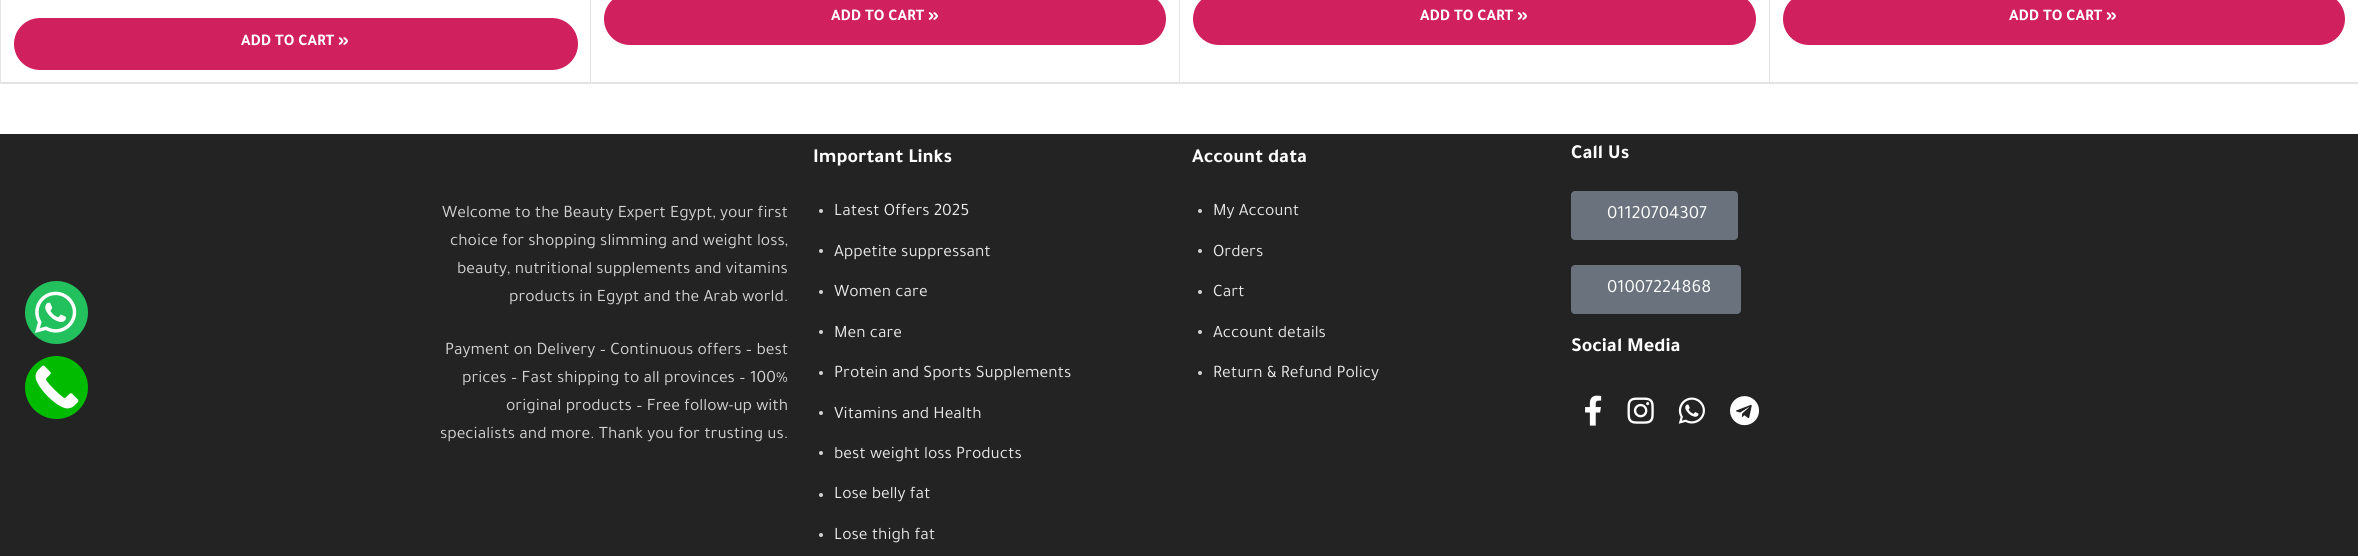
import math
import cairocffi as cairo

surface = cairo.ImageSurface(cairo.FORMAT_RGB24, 2358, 556)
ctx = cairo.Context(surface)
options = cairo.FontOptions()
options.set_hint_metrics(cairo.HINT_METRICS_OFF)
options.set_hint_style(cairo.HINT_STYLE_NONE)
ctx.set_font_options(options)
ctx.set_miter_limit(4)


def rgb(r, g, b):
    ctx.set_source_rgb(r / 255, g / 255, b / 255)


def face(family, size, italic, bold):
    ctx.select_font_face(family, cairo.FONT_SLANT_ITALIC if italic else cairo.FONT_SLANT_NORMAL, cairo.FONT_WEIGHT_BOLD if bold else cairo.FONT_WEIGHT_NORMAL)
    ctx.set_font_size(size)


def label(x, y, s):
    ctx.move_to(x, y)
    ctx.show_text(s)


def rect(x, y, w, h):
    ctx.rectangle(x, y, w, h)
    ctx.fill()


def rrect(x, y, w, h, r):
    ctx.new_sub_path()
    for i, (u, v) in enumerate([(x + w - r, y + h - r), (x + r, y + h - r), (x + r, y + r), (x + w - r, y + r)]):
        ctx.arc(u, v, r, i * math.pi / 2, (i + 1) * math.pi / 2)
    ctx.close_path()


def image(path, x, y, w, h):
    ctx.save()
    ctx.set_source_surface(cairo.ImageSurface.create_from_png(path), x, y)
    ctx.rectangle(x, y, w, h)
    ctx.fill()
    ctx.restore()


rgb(255, 255, 255)
ctx.paint()
rgb(35, 35, 35)
rect(0, 134, 2358, 422)
rgb(34, 193, 94)
ctx.arc(56.5, 312.5, 31.5, 0, 2 * math.pi)
ctx.fill()
image('image0.png', 35, 291, 42, 42)
rgb(0, 187, 0)
ctx.arc(56.5, 387.5, 31.5, 0, 2 * math.pi)
ctx.fill()
image('image1.png', 35, 365, 44, 44)
rgb(228, 228, 228)
rect(0, 0, 1, 84)
ctx.new_path()
ctx.move_to(1180, -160)
ctx.line_to(1180, 84)
ctx.line_to(1179, 82)
ctx.line_to(1179, -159)
ctx.close_path()
ctx.fill()
ctx.set_source_rgba(0, 0, 0, 0.11)
ctx.new_path()
ctx.move_to(1180, 84)
ctx.line_to(591, 84)
ctx.line_to(591, 82)
ctx.line_to(1179, 82)
ctx.close_path()
ctx.fill()
rgb(208, 32, 94)
rrect(604, -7, 562, 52, 26)
ctx.fill()
face('Tajawal', 16.25, 0, 1)
rgb(255, 255, 255)
label(831, 20, 'ADD TO CART »')
rgb(228, 228, 228)
ctx.new_path()
ctx.move_to(1770, -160)
ctx.line_to(1770, 84)
ctx.line_to(1769, 82)
ctx.line_to(1769, -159)
ctx.close_path()
ctx.fill()
ctx.set_source_rgba(0, 0, 0, 0.11)
ctx.new_path()
ctx.move_to(1770, 84)
ctx.line_to(1180, 84)
ctx.line_to(1180, 82)
ctx.line_to(1769, 82)
ctx.close_path()
ctx.fill()
rgb(208, 32, 94)
rrect(1193, -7, 563, 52, 26)
ctx.fill()
rgb(255, 255, 255)
label(1420, 20, 'ADD TO CART »')
rgb(228, 228, 228)
ctx.new_path()
ctx.move_to(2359, 84)
ctx.line_to(1770, 84)
ctx.line_to(1770, 82)
ctx.line_to(2358, 82)
ctx.close_path()
ctx.fill()
rgb(208, 32, 94)
rrect(1783, -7, 562, 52, 26)
ctx.fill()
rgb(255, 255, 255)
label(2009, 20, 'ADD TO CART »')
rgb(228, 228, 228)
ctx.new_path()
ctx.move_to(591, -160)
ctx.line_to(591, 84)
ctx.line_to(590, 82)
ctx.line_to(590, -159)
ctx.close_path()
ctx.fill()
ctx.set_source_rgba(0, 0, 0, 0.11)
ctx.new_path()
ctx.move_to(591, 84)
ctx.line_to(1, 84)
ctx.line_to(1, 82)
ctx.line_to(590, 82)
ctx.close_path()
ctx.fill()
rgb(208, 32, 94)
rrect(14, 18, 564, 52, 26)
ctx.fill()
rgb(255, 255, 255)
label(241, 45, 'ADD TO CART »')
face('Tajawal', 17.5, 0, 0)
rgb(211, 211, 211)
label(442, 217, 'Welcome to the Beauty Expert Egypt, your first')
label(450, 245, 'choice for shopping slimming and weight loss,')
label(457, 273, 'beauty, nutritional supplements and vitamins')
label(509, 301, 'products in Egypt and the Arab world.')
label(445, 354, 'Payment on Delivery – Continuous offers – best')
label(462, 382, 'prices – Fast shipping to all provinces – 100%')
label(506, 410, 'original products – Free follow-up with')
label(440, 438, 'specialists and more. Thank you for trusting us.')
face('Tajawal', 20, 0, 1)
rgb(255, 255, 255)
label(813, 162, 'Important Links')
rgb(211, 211, 211)
ctx.new_path()
ctx.arc(821, 211, 2, 0, 2 * math.pi)
ctx.fill()
face('Tajawal', 17.5, 0, 0)
rgb(233, 233, 233)
label(834, 215, 'Latest Offers 2025')
rgb(211, 211, 211)
ctx.new_path()
ctx.arc(821, 251, 2, 0, 2 * math.pi)
ctx.fill()
rgb(233, 233, 233)
label(834, 256, 'Appetite suppressant')
rgb(211, 211, 211)
ctx.new_path()
ctx.arc(821, 292, 2, 0, 2 * math.pi)
ctx.fill()
rgb(233, 233, 233)
label(834, 296, 'Women care')
rgb(211, 211, 211)
ctx.new_path()
ctx.arc(821, 332, 2, 0, 2 * math.pi)
ctx.fill()
rgb(233, 233, 233)
label(834, 337, 'Men care')
rgb(211, 211, 211)
ctx.new_path()
ctx.arc(821, 373, 2, 0, 2 * math.pi)
ctx.fill()
rgb(233, 233, 233)
label(834, 377, 'Protein and Sports Supplements')
rgb(211, 211, 211)
ctx.new_path()
ctx.arc(821, 413, 2, 0, 2 * math.pi)
ctx.fill()
rgb(233, 233, 233)
label(834, 418, 'Vitamins and Health')
rgb(211, 211, 211)
ctx.new_path()
ctx.arc(821, 453, 2, 0, 2 * math.pi)
ctx.fill()
rgb(233, 233, 233)
label(834, 458, 'best weight loss Products')
rgb(211, 211, 211)
ctx.new_path()
ctx.arc(821, 495, 2, 0, 2 * math.pi)
ctx.fill()
rgb(233, 233, 233)
label(834, 498, 'Lose belly fat')
rgb(211, 211, 211)
ctx.new_path()
ctx.arc(821, 535, 2, 0, 2 * math.pi)
ctx.fill()
rgb(233, 233, 233)
label(834, 539, 'Lose thigh fat')
face('Tajawal', 20, 0, 1)
rgb(255, 255, 255)
label(1192, 162, 'Account data')
rgb(211, 211, 211)
ctx.new_path()
ctx.arc(1200, 211, 2, 0, 2 * math.pi)
ctx.fill()
face('Tajawal', 17.5, 0, 0)
rgb(233, 233, 233)
label(1213, 215, 'My Account')
rgb(211, 211, 211)
ctx.new_path()
ctx.arc(1200, 251, 2, 0, 2 * math.pi)
ctx.fill()
rgb(233, 233, 233)
label(1213, 256, 'Orders')
rgb(211, 211, 211)
ctx.new_path()
ctx.arc(1200, 292, 2, 0, 2 * math.pi)
ctx.fill()
rgb(233, 233, 233)
label(1213, 296, 'Cart')
rgb(211, 211, 211)
ctx.new_path()
ctx.arc(1200, 332, 2, 0, 2 * math.pi)
ctx.fill()
rgb(233, 233, 233)
label(1213, 337, 'Account details')
rgb(211, 211, 211)
ctx.new_path()
ctx.arc(1200, 373, 2, 0, 2 * math.pi)
ctx.fill()
rgb(233, 233, 233)
label(1213, 377, 'Return & Refund Policy')
face('Tajawal', 20, 0, 1)
rgb(255, 255, 255)
label(1571, 158, 'Call Us')
rgb(105, 114, 125)
rrect(1571, 191, 167, 49, 4)
ctx.fill()
face('Tajawal', 18.75, 0, 0)
rgb(255, 255, 255)
label(1607, 218, '01120704307')
rgb(105, 114, 125)
rrect(1571, 265, 170, 49, 4)
ctx.fill()
rgb(255, 255, 255)
label(1607, 292, '01007224868')
face('Tajawal', 20, 0, 1)
label(1571, 351, 'Social Media')
image('image2.png', 1585, 395, 17, 31)
image('image3.png', 1627, 397, 27, 27)
image('image4.png', 1678, 397, 27, 27)
image('image5.png', 1730, 396, 30, 30)
surface.write_to_png('render.png')
